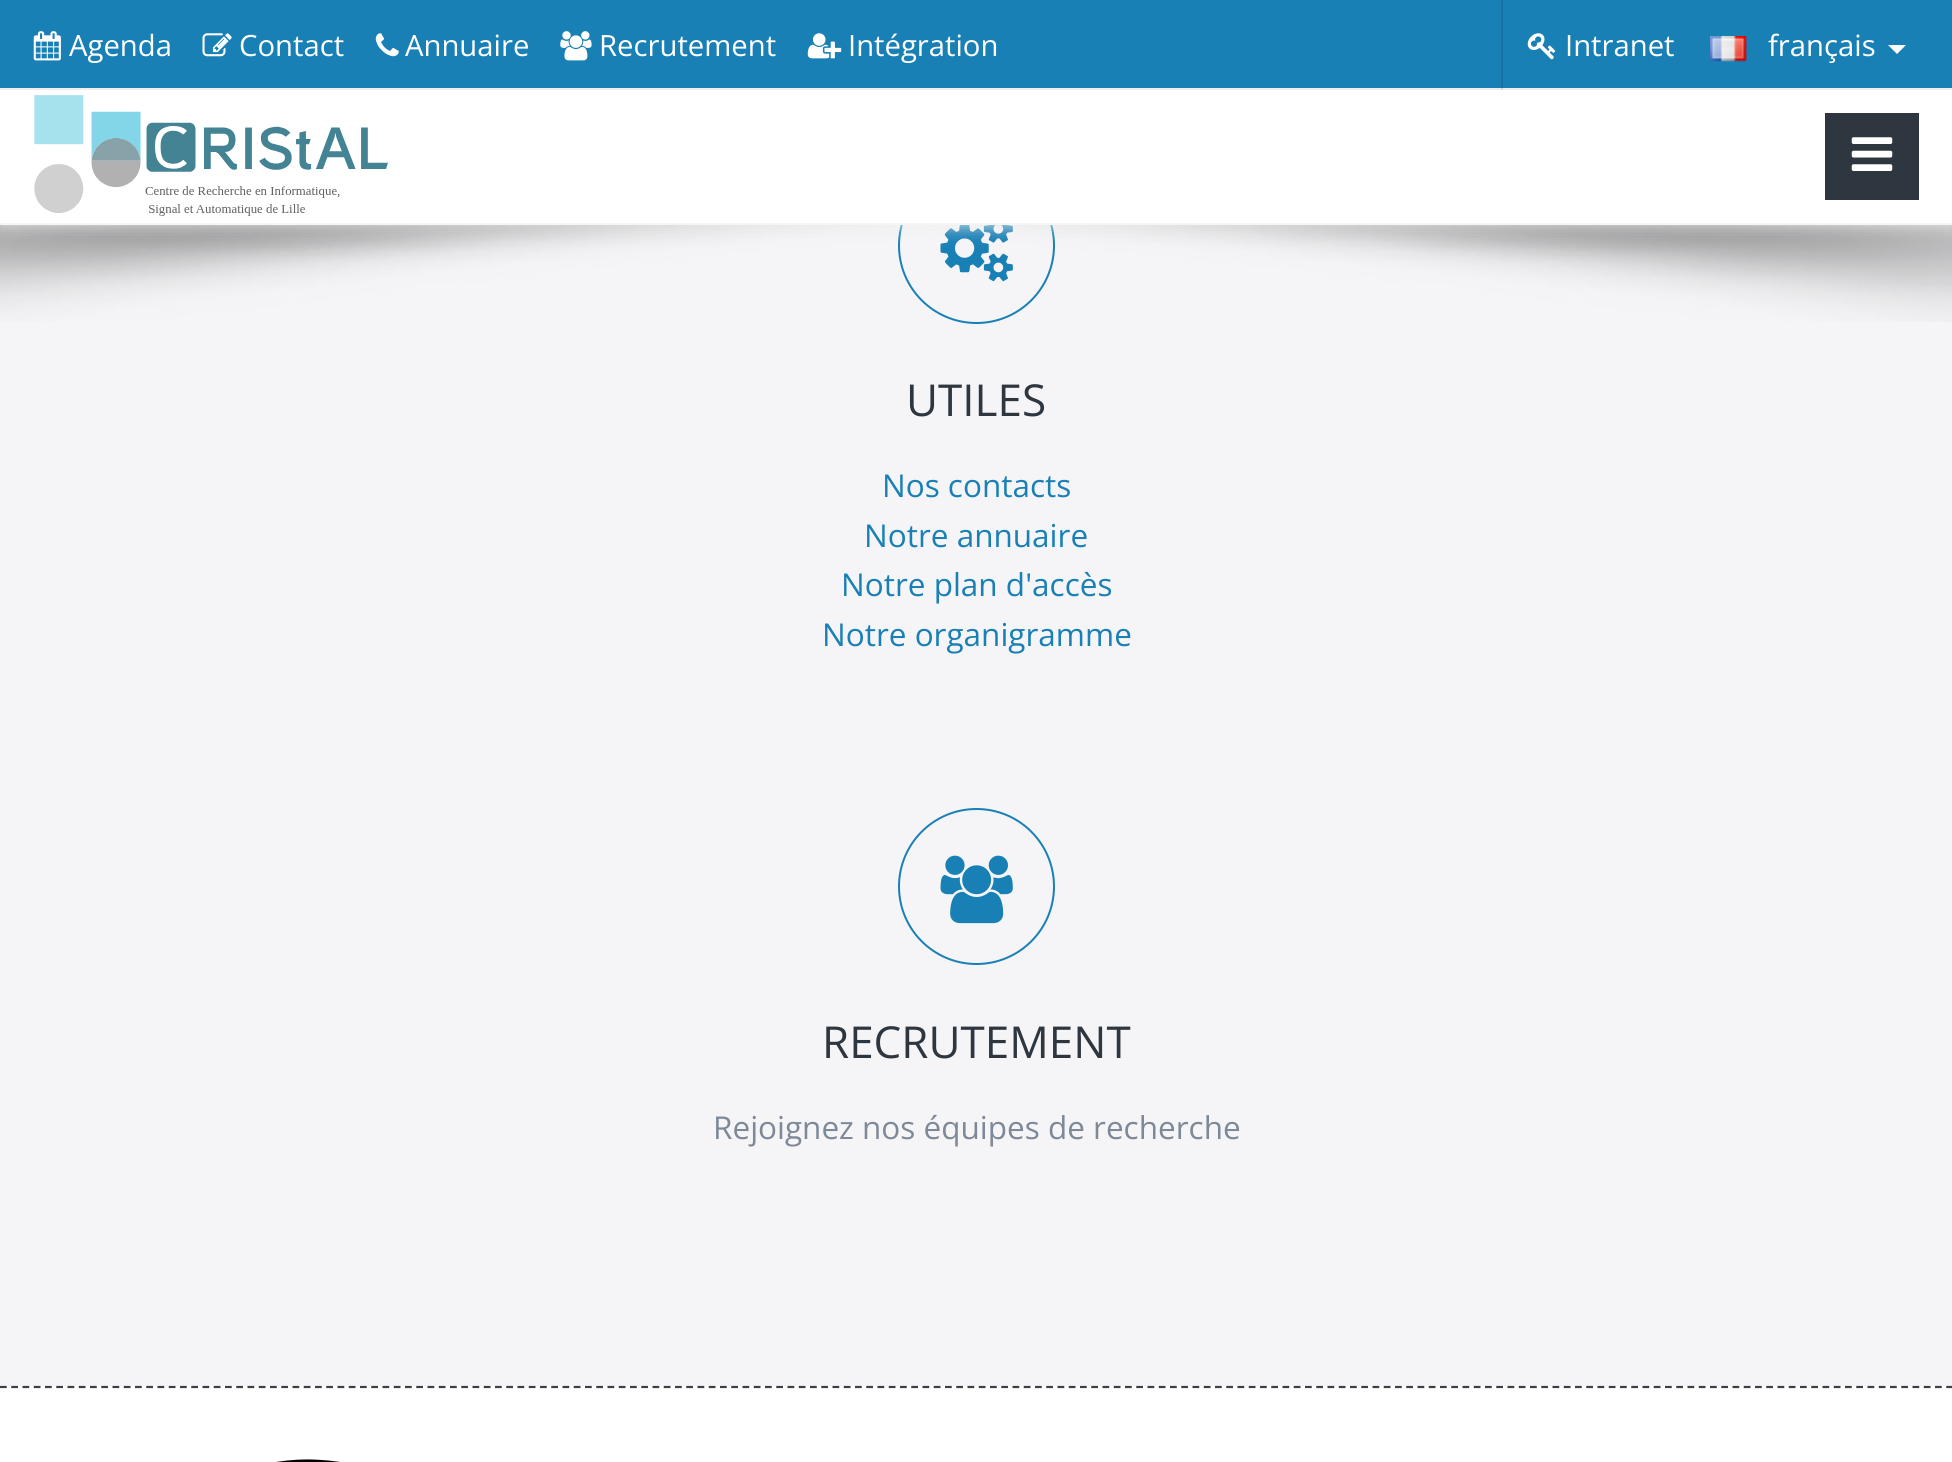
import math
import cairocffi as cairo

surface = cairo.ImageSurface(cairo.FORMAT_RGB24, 1952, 1462)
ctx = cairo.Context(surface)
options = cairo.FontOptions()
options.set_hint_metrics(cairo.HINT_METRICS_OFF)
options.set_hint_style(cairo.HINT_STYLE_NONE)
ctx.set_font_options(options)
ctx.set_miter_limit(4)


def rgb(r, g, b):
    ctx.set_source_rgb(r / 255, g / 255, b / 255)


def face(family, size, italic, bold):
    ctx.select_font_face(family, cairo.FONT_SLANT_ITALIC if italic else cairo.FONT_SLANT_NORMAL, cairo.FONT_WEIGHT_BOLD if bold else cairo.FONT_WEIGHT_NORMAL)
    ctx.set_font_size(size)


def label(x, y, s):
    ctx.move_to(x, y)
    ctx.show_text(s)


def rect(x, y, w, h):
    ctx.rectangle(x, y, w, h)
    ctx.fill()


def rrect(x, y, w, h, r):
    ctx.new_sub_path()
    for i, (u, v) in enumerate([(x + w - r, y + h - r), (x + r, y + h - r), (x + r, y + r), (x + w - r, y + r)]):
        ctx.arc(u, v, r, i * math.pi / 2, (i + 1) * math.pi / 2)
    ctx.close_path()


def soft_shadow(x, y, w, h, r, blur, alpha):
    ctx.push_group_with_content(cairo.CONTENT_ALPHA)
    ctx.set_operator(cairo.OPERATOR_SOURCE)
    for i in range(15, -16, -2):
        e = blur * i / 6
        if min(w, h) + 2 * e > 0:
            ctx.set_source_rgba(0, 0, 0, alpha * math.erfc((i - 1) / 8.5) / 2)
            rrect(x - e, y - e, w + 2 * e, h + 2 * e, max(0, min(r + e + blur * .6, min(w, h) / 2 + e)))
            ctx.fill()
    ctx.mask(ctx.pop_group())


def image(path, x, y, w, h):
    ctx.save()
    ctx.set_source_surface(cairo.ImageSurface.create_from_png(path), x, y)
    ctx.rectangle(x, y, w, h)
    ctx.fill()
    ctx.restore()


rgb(255, 255, 255)
ctx.paint()
rgb(245, 245, 247)
rect(0, 225, 1952, 1161)
ctx.arc(976.5, 245.5, 77.5, 0, 2 * math.pi)
rgb(25, 128, 182)
ctx.stroke()
image('image10.png', 940, 225, 73, 57)
image('image9.png', 0, 225, 1952, 97)
rgb(238, 238, 238)
soft_shadow(0, 90, 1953, 135, 0, 9, 1)
rgb(25, 128, 182)
rect(0, 0, 1952, 88)
rgb(238, 238, 238)
rect(0, 88, 1952, 2)
image('image0.png', 33, 31, 28, 30)
face('Open Sans', 29.25, 0, 0)
rgb(255, 255, 255)
label(69, 56, 'Agenda')
image('image1.png', 202, 33, 30, 24)
label(239, 56, 'Contact')
image('image2.png', 375, 33, 24, 24)
label(405, 56, 'Annuaire')
image('image3.png', 560, 31, 32, 30)
label(599, 56, 'Recrutement')
image('image4.png', 807, 33, 35, 26)
label(848, 56, 'Intégration')
ctx.set_source_rgba(0, 0, 0, 0.1)
rect(1501, 0, 2, 90)
image('image5.png', 1527, 33, 29, 27)
rgb(255, 255, 255)
label(1565, 56, 'Intranet')
image('image6.png', 1710, 36, 37, 26)
label(1768, 56, 'français')
ctx.new_path()
ctx.move_to(1888, 45)
ctx.line_to(1906, 45)
ctx.line_to(1897, 54)
ctx.close_path()
ctx.fill()
rect(0, 90, 1952, 133)
rgb(244, 245, 247)
rect(0, 223, 1952, 2)
image('image7.png', 34, 95, 354, 121)
rgb(46, 54, 63)
rect(1825, 113, 94, 87)
image('image8.png', 1851, 137, 42, 34)
face('Open Sans', 44, 0, 0)
label(906, 416, 'UTILES')
face('Open Sans', 31.5, 0, 0)
rgb(25, 128, 182)
label(882, 497, 'Nos contacts')
label(864, 547, 'Notre annuaire')
label(841, 596, 'Notre plan d\'accès')
label(822, 646, 'Notre organigramme')
ctx.new_path()
ctx.arc(976.5, 886.5, 77.5, 0, 2 * math.pi)
ctx.stroke()
image('image11.png', 940, 855, 73, 69)
face('Open Sans', 44, 0, 0)
rgb(46, 54, 63)
label(822, 1058, 'RECRUTEMENT')
face('Open Sans', 31.5, 0, 0)
rgb(126, 137, 152)
label(713, 1139, 'Rejoignez nos équipes de recherche')
ctx.new_path()
ctx.move_to(0, 1387)
ctx.line_to(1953, 1387)
rgb(64, 62, 68)
ctx.set_line_width(2.2)
ctx.set_dash([6.75, 4.5])
ctx.stroke()
image('image12.png', 276, 1459, 64, 3)
surface.write_to_png('render.png')
